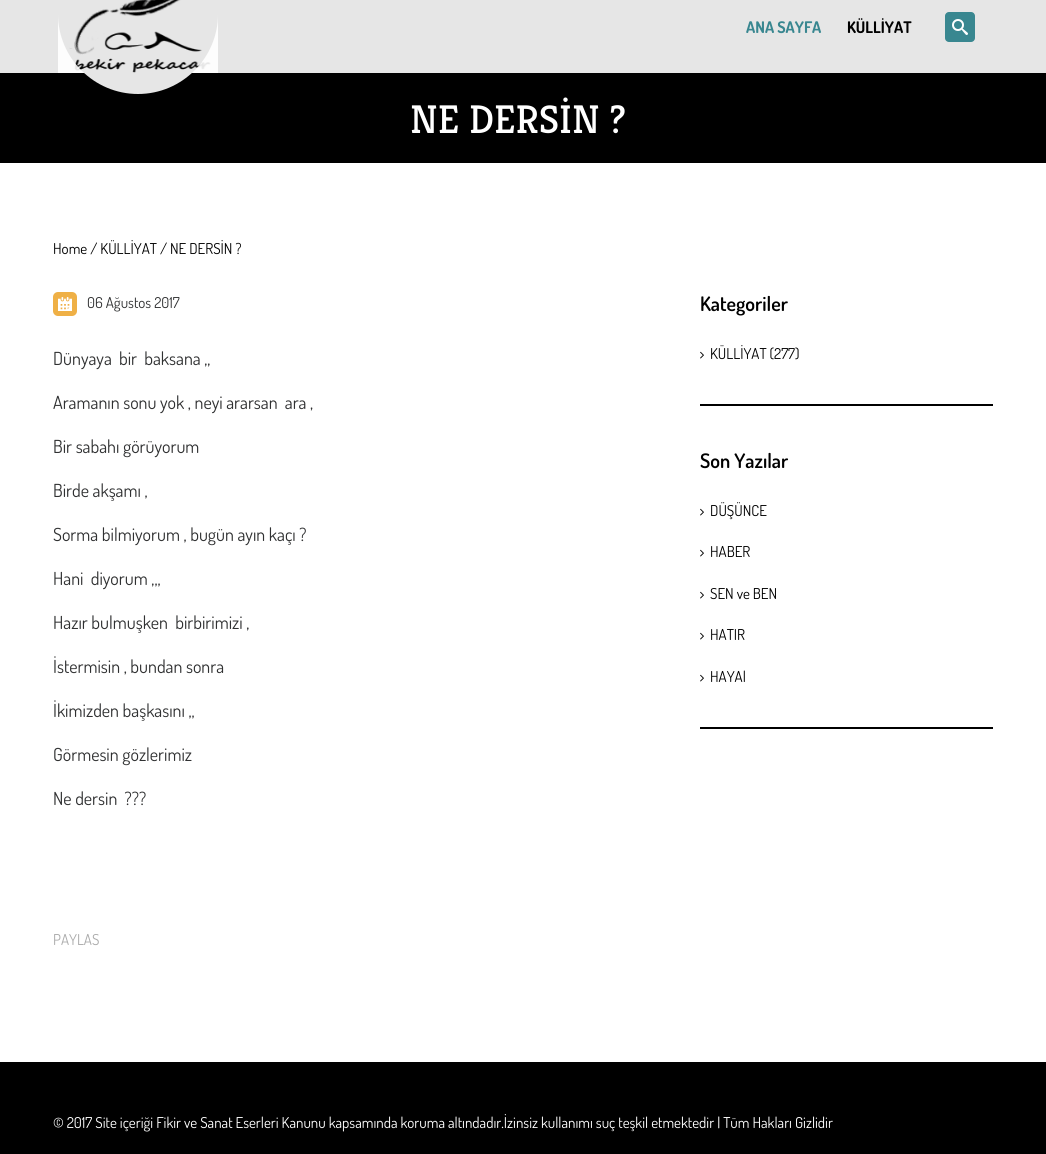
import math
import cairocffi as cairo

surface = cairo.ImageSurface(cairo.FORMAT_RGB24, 1046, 1154)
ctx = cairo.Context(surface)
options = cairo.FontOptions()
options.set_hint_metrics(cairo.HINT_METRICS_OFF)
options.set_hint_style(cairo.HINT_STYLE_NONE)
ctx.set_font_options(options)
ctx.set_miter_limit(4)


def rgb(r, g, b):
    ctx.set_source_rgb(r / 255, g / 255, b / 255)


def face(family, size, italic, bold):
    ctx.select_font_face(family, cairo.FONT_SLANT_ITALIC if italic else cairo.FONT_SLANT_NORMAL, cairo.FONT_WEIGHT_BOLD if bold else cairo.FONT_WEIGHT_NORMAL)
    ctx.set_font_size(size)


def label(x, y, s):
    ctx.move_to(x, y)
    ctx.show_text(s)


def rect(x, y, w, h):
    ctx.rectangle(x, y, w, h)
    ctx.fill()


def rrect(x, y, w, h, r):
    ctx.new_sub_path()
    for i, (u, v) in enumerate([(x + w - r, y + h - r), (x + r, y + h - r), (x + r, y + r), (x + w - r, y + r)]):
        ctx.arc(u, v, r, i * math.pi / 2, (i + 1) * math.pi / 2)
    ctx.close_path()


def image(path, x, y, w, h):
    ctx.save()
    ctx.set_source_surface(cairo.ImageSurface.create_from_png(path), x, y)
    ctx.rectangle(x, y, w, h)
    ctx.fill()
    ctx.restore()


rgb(255, 255, 255)
ctx.paint()
rgb(230, 230, 230)
rect(0, 0, 1046, 73)
image('image0.png', 69, 0, 142, 73)
rgb(0, 0, 0)
rect(0, 73, 1046, 90)
ctx.set_source_rgba(1, 1, 1, 0.9)
ctx.new_path()
ctx.move_to(58, 73)
ctx.line_to(218, 73)
ctx.line_to(218, 14)
ctx.curve_to(218, 58, 182, 94, 138, 94)
ctx.curve_to(94, 94, 58, 58, 58, 14)
ctx.close_path()
ctx.fill()
face('Dosis', 16, 0, 1)
rgb(57, 135, 144)
label(746, 33, 'ANA SAYFA')
rgb(0, 0, 0)
label(847, 33, 'KÜLLİYAT')
rgb(57, 135, 144)
rrect(945, 12, 30, 30, 4)
ctx.fill()
image('image1.png', 952, 19, 16, 16)
face('Kreon', 40, 0, 0)
rgb(255, 255, 255)
label(410, 133, 'NE DERSİN ?')
face('Dosis', 15, 0, 0)
rgb(0, 0, 0)
label(53, 254, 'Home / KÜLLİYAT / NE DERSİN ?')
image('image2.png', 53, 292, 24, 24)
rgb(48, 49, 50)
label(87, 308, '06 Ağustos 2017')
face('Dosis', 18, 0, 0)
label(53, 365, 'Dünyaya  bir  baksana ,,')
label(53, 409, 'Aramanın sonu yok , neyi ararsan  ara ,')
label(53, 453, 'Bir sabahı görüyorum')
label(53, 497, 'Birde akşamı ,')
label(53, 541, 'Sorma bilmiyorum , bugün ayın kaçı ?')
label(53, 585, 'Hani  diyorum ,,,')
label(53, 629, 'Hazır bulmuşken  birbirimizi ,')
label(53, 673, 'İstermisin , bundan sonra')
label(53, 717, 'İkimizden başkasını ,,')
label(53, 761, 'Görmesin gözlerimiz')
label(53, 805, 'Ne dersin  ???')
face('Dosis', 15, 0, 0)
rgb(170, 170, 170)
label(53, 945, 'PAYLAS')
rgb(0, 0, 0)
rect(700, 404, 293, 2)
face('Dosis SemiBold', 20, 0, 0)
label(700, 311, 'Kategoriler')
image('image3.png', 700, 351, 4, 8)
face('Dosis', 15, 0, 0)
label(710, 359, 'KÜLLİYAT (277)')
rect(700, 727, 293, 2)
face('Dosis SemiBold', 20, 0, 0)
label(700, 468, 'Son Yazılar')
image('image3.png', 700, 508, 4, 8)
face('Dosis', 15, 0, 0)
label(710, 516, 'DÜŞÜNCE')
image('image3.png', 700, 549, 4, 8)
label(710, 557, 'HABER')
image('image3.png', 700, 591, 4, 8)
label(710, 599, 'SEN ve BEN')
image('image3.png', 700, 632, 4, 8)
label(710, 640, 'HATIR')
image('image3.png', 700, 674, 4, 8)
label(710, 682, 'HAYAl')
rect(0, 1062, 1046, 92)
rgb(255, 255, 255)
label(53, 1128, '© 2017 Site içeriği Fikir ve Sanat Eserleri Kanunu kapsamında koruma altındadır.İzinsiz kullanımı suç teşkil etmektedir | Tüm Hakları Gizlidir')
surface.write_to_png('render.png')
